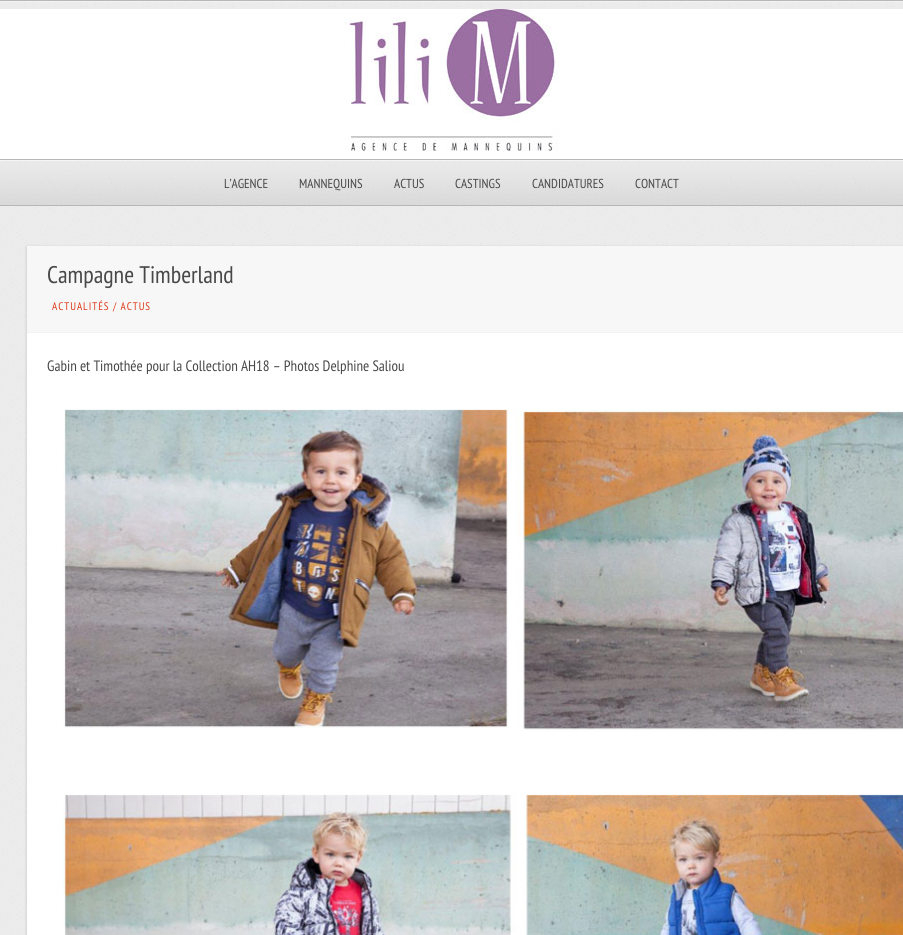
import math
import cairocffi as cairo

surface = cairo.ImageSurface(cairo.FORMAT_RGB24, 903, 935)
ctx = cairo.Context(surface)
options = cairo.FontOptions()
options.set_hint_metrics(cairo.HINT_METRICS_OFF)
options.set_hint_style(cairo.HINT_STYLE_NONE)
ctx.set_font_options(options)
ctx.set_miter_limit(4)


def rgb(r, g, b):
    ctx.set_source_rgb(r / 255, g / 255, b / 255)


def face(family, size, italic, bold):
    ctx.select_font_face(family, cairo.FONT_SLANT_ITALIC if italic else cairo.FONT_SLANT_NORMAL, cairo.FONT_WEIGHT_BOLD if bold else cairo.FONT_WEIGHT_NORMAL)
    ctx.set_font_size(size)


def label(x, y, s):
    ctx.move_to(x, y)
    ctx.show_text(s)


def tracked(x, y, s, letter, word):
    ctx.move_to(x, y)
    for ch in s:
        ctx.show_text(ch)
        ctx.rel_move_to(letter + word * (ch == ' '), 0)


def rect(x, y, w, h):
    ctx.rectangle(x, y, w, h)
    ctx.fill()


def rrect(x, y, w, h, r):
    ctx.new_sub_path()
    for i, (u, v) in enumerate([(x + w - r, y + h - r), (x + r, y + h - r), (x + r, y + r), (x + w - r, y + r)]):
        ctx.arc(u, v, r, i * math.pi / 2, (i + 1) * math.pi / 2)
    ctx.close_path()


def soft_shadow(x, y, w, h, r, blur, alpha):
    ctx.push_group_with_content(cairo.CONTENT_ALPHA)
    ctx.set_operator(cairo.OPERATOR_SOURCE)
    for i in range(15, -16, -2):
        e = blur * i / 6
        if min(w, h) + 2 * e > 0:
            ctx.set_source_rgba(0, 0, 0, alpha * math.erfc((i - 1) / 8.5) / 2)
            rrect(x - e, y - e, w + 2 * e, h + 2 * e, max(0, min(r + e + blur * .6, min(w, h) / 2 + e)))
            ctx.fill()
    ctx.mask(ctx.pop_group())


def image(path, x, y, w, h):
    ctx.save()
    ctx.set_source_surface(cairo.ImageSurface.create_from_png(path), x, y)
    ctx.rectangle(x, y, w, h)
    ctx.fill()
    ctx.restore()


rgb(235, 235, 235)
ctx.paint()
image('image0.png', 2, 206, 900, 729)
image('image1.png', 2, 1, 900, 8)
ctx.set_source_rgba(1, 1, 1, 0.4)
rect(0, 1, 903, 1)
rgb(183, 183, 183)
rect(0, 0, 903, 1)
rect(0, 205, 903, 1)
rgb(255, 255, 255)
rect(0, 9, 903, 150)
image('image2.png', 343, 9, 216, 142)
image('image3.png', 0, 160, 903, 45)
ctx.set_source_rgba(1, 1, 1, 0.4)
rect(0, 160, 903, 1)
rgb(183, 183, 183)
rect(0, 159, 903, 1)
face('PT Sans Narrow', 13, 0, 0)
rgb(72, 72, 72)
label(224, 188, 'L’AGENCE')
label(299, 188, 'MANNEQUINS')
label(394, 188, 'ACTUS')
label(455, 188, 'CASTINGS')
label(532, 188, 'CANDIDATURES')
label(635, 188, 'CONTACT')
rgb(0, 0, 0)
soft_shadow(27, 247, 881, 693, 0, 1.5, 0.2)
rgb(255, 255, 255)
rect(27, 333, 876, 602)
rgb(247, 247, 247)
rect(27, 246, 876, 86)
rgb(242, 242, 242)
rect(27, 332, 876, 1)
face('PT Sans Narrow', 24, 0, 0)
rgb(72, 72, 72)
label(47, 283, 'Campagne Timberland')
face('PT Sans Narrow', 11, 0, 0)
rgb(222, 57, 23)
tracked(52, 310, 'ACTUALITÉS / ACTUS', 1, 0)
face('PT Sans Narrow', 15, 0, 0)
rgb(72, 72, 72)
label(47, 371, 'Gabin et Timothée pour la Collection AH18 – Photos Delphine Saliou')
image('image4.png', 63, 409, 840, 321)
image('image5.png', 63, 794, 840, 141)
surface.write_to_png('render.png')
